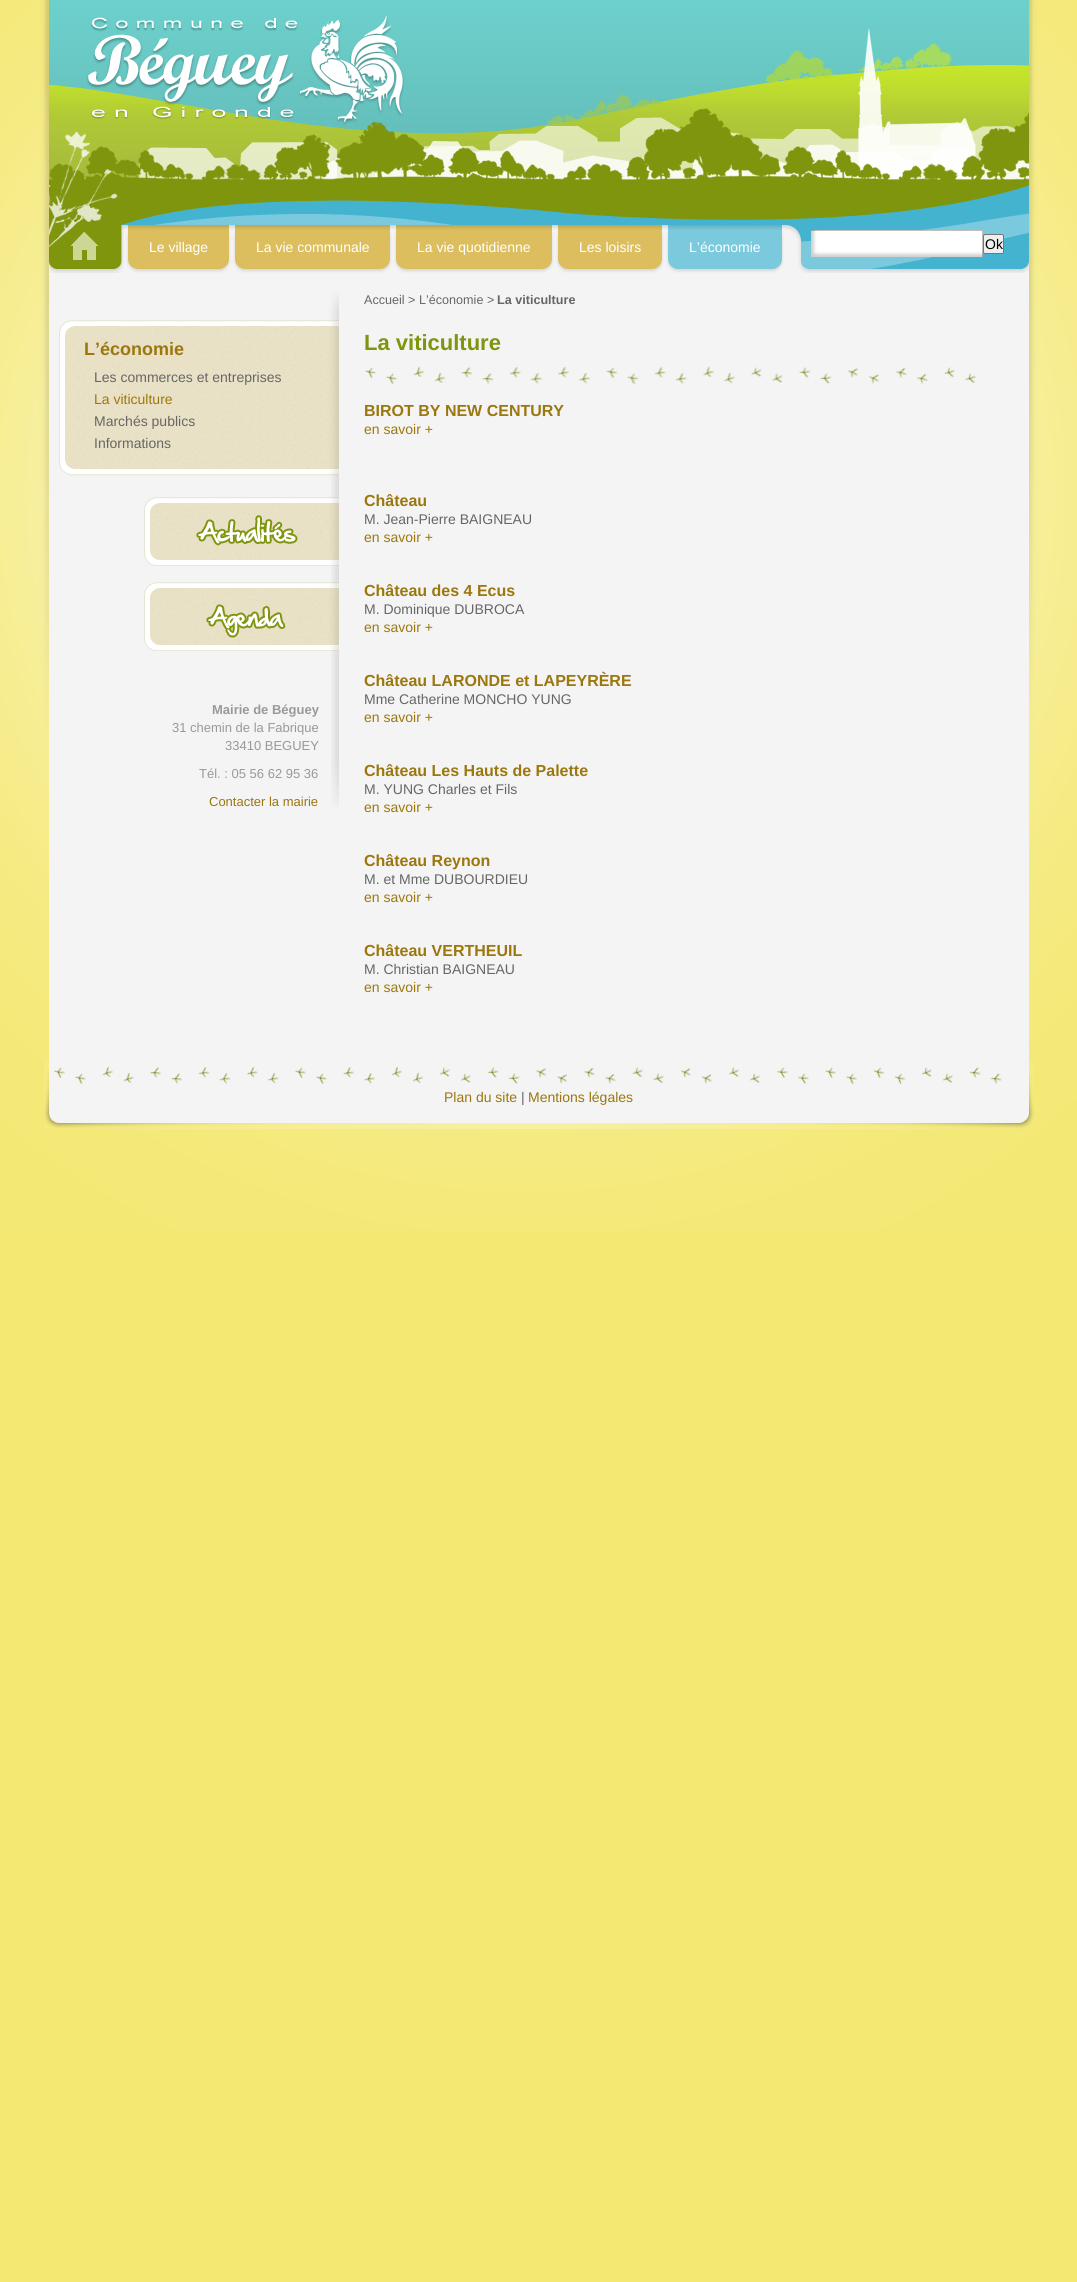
import math
import cairocffi as cairo

surface = cairo.ImageSurface(cairo.FORMAT_RGB24, 1077, 2282)
ctx = cairo.Context(surface)
options = cairo.FontOptions()
options.set_hint_metrics(cairo.HINT_METRICS_OFF)
options.set_hint_style(cairo.HINT_STYLE_NONE)
ctx.set_font_options(options)
ctx.set_miter_limit(4)


def rgb(r, g, b):
    ctx.set_source_rgb(r / 255, g / 255, b / 255)


def face(family, size, italic, bold):
    ctx.select_font_face(family, cairo.FONT_SLANT_ITALIC if italic else cairo.FONT_SLANT_NORMAL, cairo.FONT_WEIGHT_BOLD if bold else cairo.FONT_WEIGHT_NORMAL)
    ctx.set_font_size(size)


def label(x, y, s):
    ctx.move_to(x, y)
    ctx.show_text(s)


def rect(x, y, w, h):
    ctx.rectangle(x, y, w, h)
    ctx.fill()


def rrect(x, y, w, h, r):
    ctx.new_sub_path()
    for i, (u, v) in enumerate([(x + w - r, y + h - r), (x + r, y + h - r), (x + r, y + r), (x + w - r, y + r)]):
        ctx.arc(u, v, r, i * math.pi / 2, (i + 1) * math.pi / 2)
    ctx.close_path()


def soft_shadow(x, y, w, h, r, blur, alpha):
    ctx.push_group_with_content(cairo.CONTENT_ALPHA)
    ctx.set_operator(cairo.OPERATOR_SOURCE)
    for i in range(15, -16, -2):
        e = blur * i / 6
        if min(w, h) + 2 * e > 0:
            ctx.set_source_rgba(0, 0, 0, alpha * math.erfc((i - 1) / 8.5) / 2)
            rrect(x - e, y - e, w + 2 * e, h + 2 * e, max(0, min(r + e + blur * .6, min(w, h) / 2 + e)))
            ctx.fill()
    ctx.mask(ctx.pop_group())


def image(path, x, y, w, h):
    ctx.save()
    ctx.set_source_surface(cairo.ImageSurface.create_from_png(path), x, y)
    ctx.rectangle(x, y, w, h)
    ctx.fill()
    ctx.restore()


rgb(244, 232, 115)
ctx.paint()
image('image0.png', 0, 0, 1077, 1233)
rgb(244, 244, 244)
rect(49, 225, 980, 837)
image('image2.png', 49, 230, 75, 43)
rgb(214, 214, 214)
soft_shadow(128, 227, 101, 44, 10, 1.5, 1)
rgb(220, 190, 95)
ctx.new_path()
ctx.move_to(128, 225)
ctx.line_to(229, 225)
ctx.line_to(229, 259)
ctx.curve_to(229, 264.5, 224.5, 269, 219, 269)
ctx.line_to(138, 269)
ctx.curve_to(132.5, 269, 128, 264.5, 128, 259)
ctx.close_path()
ctx.fill()
rgb(214, 214, 214)
soft_shadow(235, 227, 155, 44, 10, 1.5, 1)
rgb(220, 190, 95)
ctx.new_path()
ctx.move_to(235, 225)
ctx.line_to(390, 225)
ctx.line_to(390, 259)
ctx.curve_to(390, 264.5, 385.5, 269, 380, 269)
ctx.line_to(245, 269)
ctx.curve_to(239.5, 269, 235, 264.5, 235, 259)
ctx.close_path()
ctx.fill()
rgb(214, 214, 214)
soft_shadow(396, 227, 156, 44, 10, 1.5, 1)
rgb(220, 190, 95)
ctx.new_path()
ctx.move_to(396, 225)
ctx.line_to(552, 225)
ctx.line_to(552, 259)
ctx.curve_to(552, 264.5, 547.5, 269, 542, 269)
ctx.line_to(406, 269)
ctx.curve_to(400.5, 269, 396, 264.5, 396, 259)
ctx.close_path()
ctx.fill()
rgb(214, 214, 214)
soft_shadow(558, 227, 104, 44, 10, 1.5, 1)
rgb(220, 190, 95)
ctx.new_path()
ctx.move_to(558, 225)
ctx.line_to(662, 225)
ctx.line_to(662, 259)
ctx.curve_to(662, 264.5, 657.5, 269, 652, 269)
ctx.line_to(568, 269)
ctx.curve_to(562.5, 269, 558, 264.5, 558, 259)
ctx.close_path()
ctx.fill()
rgb(214, 214, 214)
soft_shadow(668, 227, 114, 44, 10, 1.5, 1)
rgb(122, 201, 221)
ctx.new_path()
ctx.move_to(668, 225)
ctx.line_to(782, 225)
ctx.line_to(782, 259)
ctx.curve_to(782, 264.5, 777.5, 269, 772, 269)
ctx.line_to(678, 269)
ctx.curve_to(672.5, 269, 668, 264.5, 668, 259)
ctx.close_path()
ctx.fill()
image('image1.png', 49, 0, 980, 230)
face('Liberation Sans', 14, 0, 0)
rgb(255, 255, 255)
label(149, 252, 'Le village')
label(256, 252, 'La vie communale')
label(417, 252, 'La vie quotidienne')
label(579, 252, 'Les loisirs')
label(689, 252, 'L’économie')
image('image3.png', 789, 230, 240, 43)
image('image4.png', 811, 230, 172, 27)
rgb(239, 239, 239)
rrect(983.5, 234.5, 20, 19, 1.5)
ctx.fill_preserve()
rgb(118, 118, 118)
ctx.set_line_width(1)
ctx.stroke()
rgb(0, 0, 0)
label(985, 249, 'Ok')
image('image5.png', 331, 476, 8, 225)
image('image6.png', 59, 291, 280, 49)
image('image7.png', 59, 340, 280, 116)
face('Liberation Sans', 18, 0, 1)
rgb(155, 119, 14)
label(84, 355, 'L’économie')
face('Liberation Sans', 14, 0, 0)
rgb(102, 102, 102)
label(94, 382, 'Les commerces et entreprises')
rgb(155, 119, 14)
label(94, 404, 'La viticulture')
rgb(102, 102, 102)
label(94, 426, 'Marchés publics')
label(94, 448, 'Informations')
image('image8.png', 59, 456, 280, 20)
image('image9.png', 144, 497, 195, 69)
image('image10.png', 144, 582, 195, 69)
image('image11.png', 331, 701, 8, 106)
face('Liberation Sans', 13, 0, 1)
rgb(153, 153, 153)
label(212, 714, 'Mairie de Béguey')
face('Liberation Sans', 13, 0, 0)
label(172, 732, '31 chemin de la Fabrique')
label(225, 750, '33410 BEGUEY')
label(199, 778, 'Tél. : 05 56 62 95 36')
rgb(155, 119, 14)
label(209, 806, 'Contacter la mairie')
face('Liberation Sans', 12.6, 0, 0)
rgb(102, 102, 102)
label(364, 304, 'Accueil > L’économie >')
face('Liberation Sans', 12.6, 0, 1)
label(497, 304, 'La viticulture')
image('image12.png', 365, 366, 611, 18)
face('Liberation Sans', 22, 0, 1)
rgb(126, 149, 13)
label(364, 350, 'La viticulture')
face('Liberation Sans', 16, 0, 1)
rgb(155, 119, 14)
label(364, 416, 'BIROT BY NEW CENTURY')
face('Liberation Sans', 14, 0, 0)
label(364, 434, 'en savoir +')
face('Liberation Sans', 16, 0, 1)
label(364, 506, 'Château')
face('Liberation Sans', 14, 0, 0)
rgb(102, 102, 102)
label(364, 524, 'M. Jean-Pierre BAIGNEAU')
rgb(155, 119, 14)
label(364, 542, 'en savoir +')
face('Liberation Sans', 16, 0, 1)
label(364, 596, 'Château des 4 Ecus')
face('Liberation Sans', 14, 0, 0)
rgb(102, 102, 102)
label(364, 614, 'M. Dominique DUBROCA')
rgb(155, 119, 14)
label(364, 632, 'en savoir +')
face('Liberation Sans', 16, 0, 1)
label(364, 686, 'Château LARONDE et LAPEYRÈRE')
face('Liberation Sans', 14, 0, 0)
rgb(102, 102, 102)
label(364, 704, 'Mme Catherine MONCHO YUNG')
rgb(155, 119, 14)
label(364, 722, 'en savoir +')
face('Liberation Sans', 16, 0, 1)
label(364, 776, 'Château Les Hauts de Palette')
face('Liberation Sans', 14, 0, 0)
rgb(102, 102, 102)
label(364, 794, 'M. YUNG Charles et Fils')
rgb(155, 119, 14)
label(364, 812, 'en savoir +')
face('Liberation Sans', 16, 0, 1)
label(364, 866, 'Château Reynon')
face('Liberation Sans', 14, 0, 0)
rgb(102, 102, 102)
label(364, 884, 'M. et Mme DUBOURDIEU')
rgb(155, 119, 14)
label(364, 902, 'en savoir +')
face('Liberation Sans', 16, 0, 1)
label(364, 956, 'Château VERTHEUIL')
face('Liberation Sans', 14, 0, 0)
rgb(102, 102, 102)
label(364, 974, 'M. Christian BAIGNEAU')
rgb(155, 119, 14)
label(364, 992, 'en savoir +')
image('image13.png', 44, 1062, 990, 67)
label(444, 1102, 'Plan du site')
rgb(102, 102, 102)
label(521, 1102, '|')
rgb(155, 119, 14)
label(528, 1102, 'Mentions légales')
surface.write_to_png('render.png')
